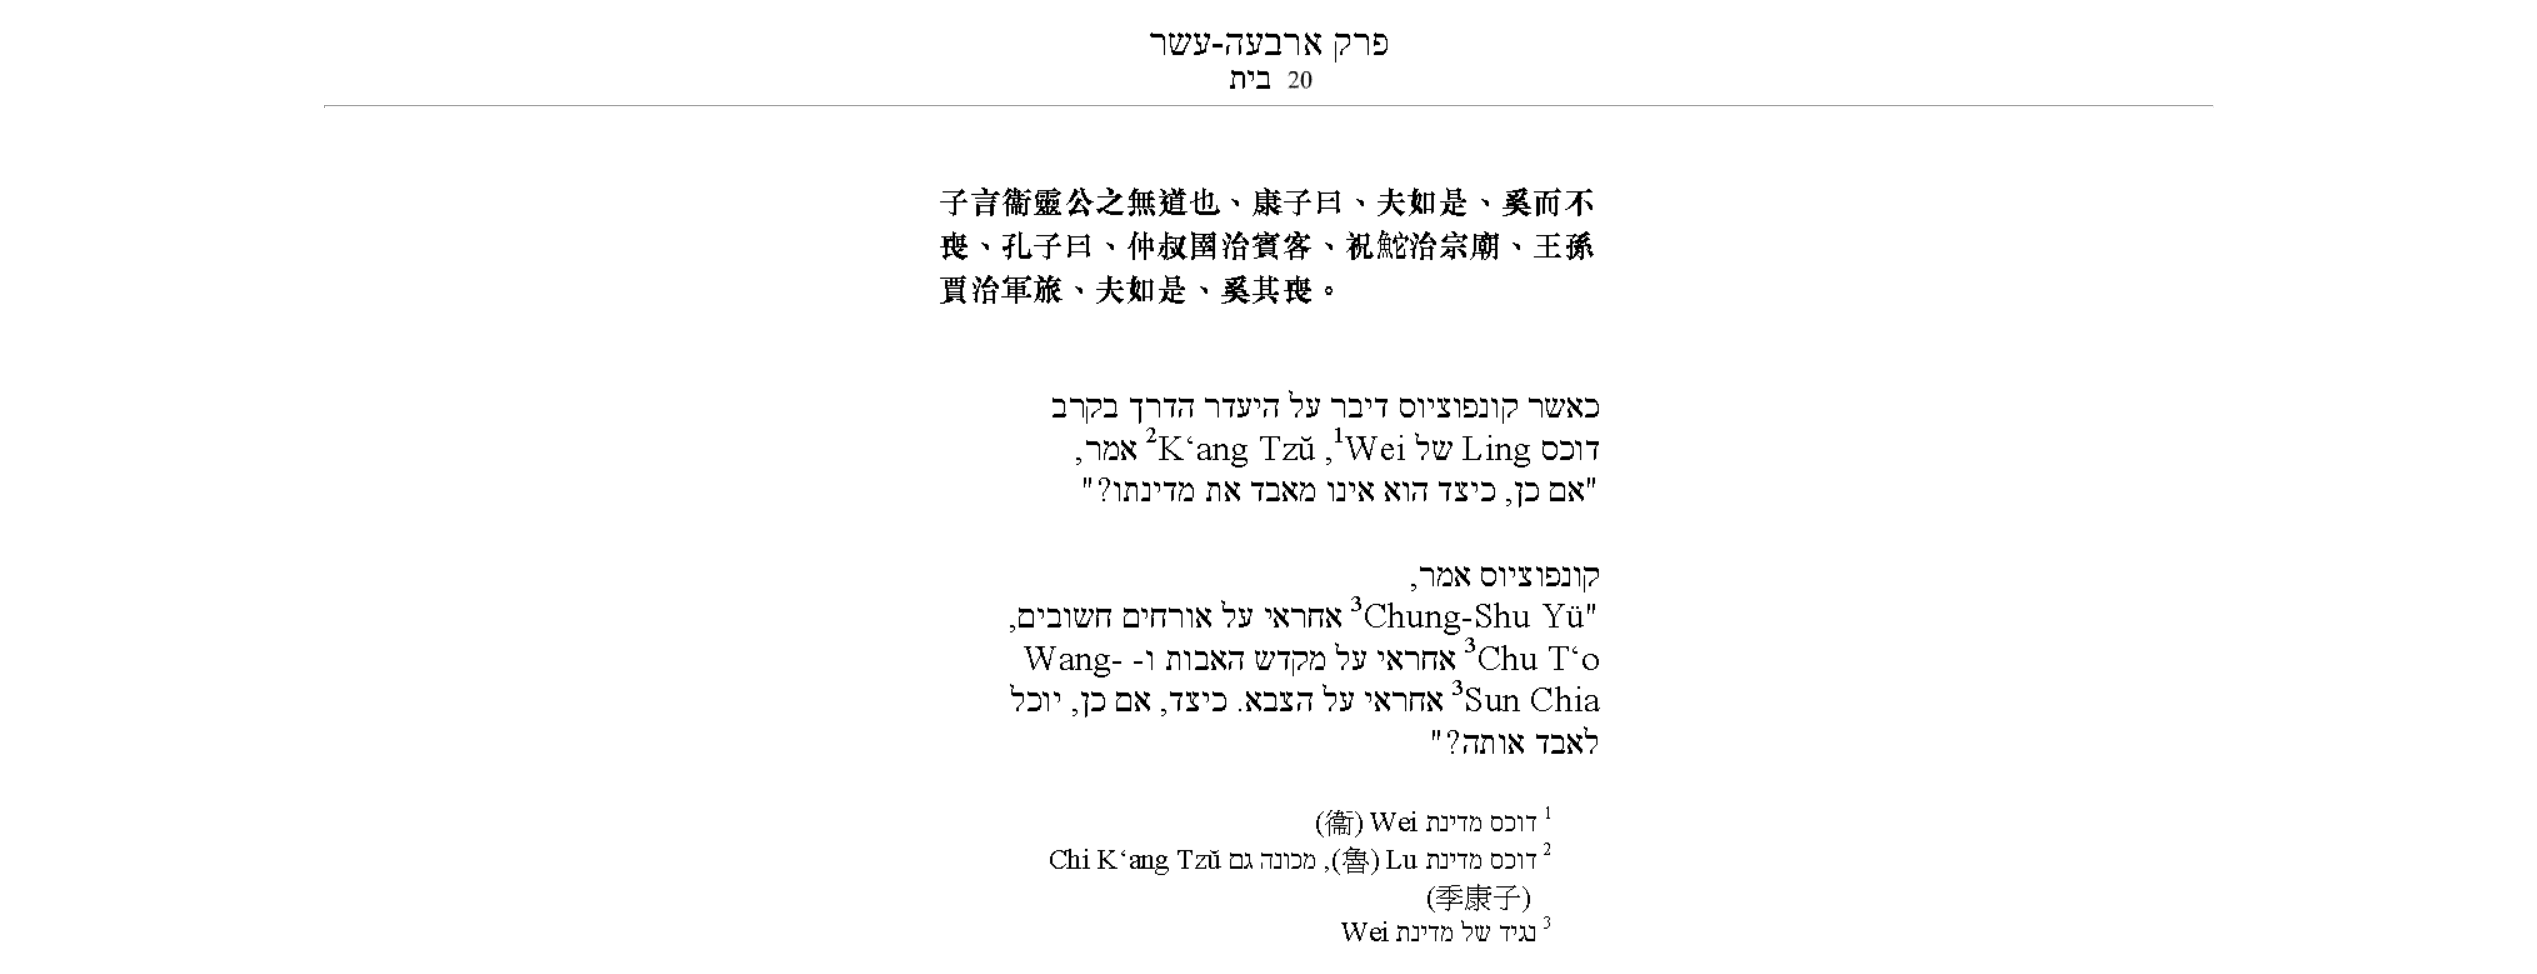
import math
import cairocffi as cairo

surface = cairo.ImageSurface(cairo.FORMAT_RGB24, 2537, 974)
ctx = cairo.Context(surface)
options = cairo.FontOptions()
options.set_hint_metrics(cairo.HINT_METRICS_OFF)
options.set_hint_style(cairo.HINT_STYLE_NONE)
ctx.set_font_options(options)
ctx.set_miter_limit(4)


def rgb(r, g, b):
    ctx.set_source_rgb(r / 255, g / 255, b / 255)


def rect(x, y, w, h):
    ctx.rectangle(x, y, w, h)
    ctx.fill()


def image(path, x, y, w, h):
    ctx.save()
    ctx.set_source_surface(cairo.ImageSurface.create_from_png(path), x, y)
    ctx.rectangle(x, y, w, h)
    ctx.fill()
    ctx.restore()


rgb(255, 255, 255)
ctx.paint()
image('image0.png', 1149, 32, 239, 31)
image('image1.png', 1229, 69, 84, 20)
rgb(159, 159, 159)
rect(324, 105, 1890, 1)
rgb(238, 238, 238)
rect(2213, 105, 1, 3)
rect(324, 106, 1890, 1)
rgb(159, 159, 159)
rect(324, 105, 1, 3)
image('image2.png', 939, 187, 655, 117)
image('image3.png', 1009, 389, 592, 553)
surface.write_to_png('render.png')
